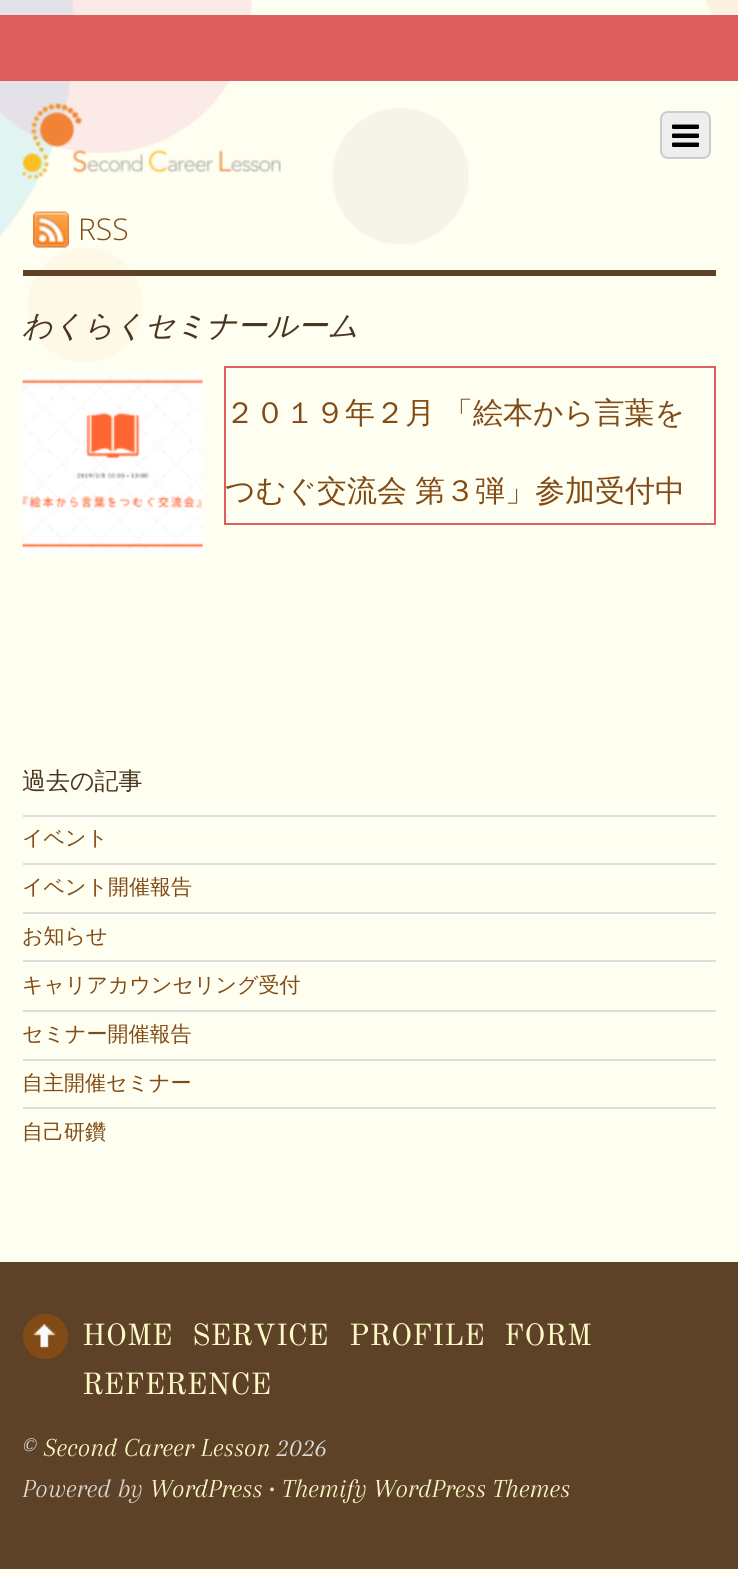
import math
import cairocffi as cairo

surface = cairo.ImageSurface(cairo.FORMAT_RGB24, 738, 1577)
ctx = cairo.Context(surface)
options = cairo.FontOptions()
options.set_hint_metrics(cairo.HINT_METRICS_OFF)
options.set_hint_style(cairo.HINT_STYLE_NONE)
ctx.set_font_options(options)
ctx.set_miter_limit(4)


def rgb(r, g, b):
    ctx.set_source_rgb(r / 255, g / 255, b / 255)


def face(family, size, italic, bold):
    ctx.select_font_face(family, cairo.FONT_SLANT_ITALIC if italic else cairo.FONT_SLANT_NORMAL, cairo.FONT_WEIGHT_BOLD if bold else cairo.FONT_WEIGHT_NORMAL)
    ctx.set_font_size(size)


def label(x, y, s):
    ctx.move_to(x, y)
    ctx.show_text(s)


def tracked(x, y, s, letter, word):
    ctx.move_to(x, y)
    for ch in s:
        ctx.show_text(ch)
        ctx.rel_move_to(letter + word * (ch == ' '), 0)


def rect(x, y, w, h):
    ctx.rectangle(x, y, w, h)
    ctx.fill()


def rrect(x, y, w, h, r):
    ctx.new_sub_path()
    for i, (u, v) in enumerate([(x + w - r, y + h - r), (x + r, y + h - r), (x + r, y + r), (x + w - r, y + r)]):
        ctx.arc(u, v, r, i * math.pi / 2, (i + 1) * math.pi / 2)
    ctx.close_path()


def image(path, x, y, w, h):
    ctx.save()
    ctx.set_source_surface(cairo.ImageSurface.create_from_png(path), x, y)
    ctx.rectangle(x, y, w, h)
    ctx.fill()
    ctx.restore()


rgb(254, 254, 241)
ctx.paint()
image('image0.png', 0, 0, 738, 363)
rgb(222, 93, 93)
rect(0, 15, 738, 66)
rgb(93, 66, 40)
rect(23, 270, 693, 6)
image('image1.png', 22, 103, 259, 76)
rgb(238, 238, 238)
rrect(661, 112, 49, 46, 7)
ctx.fill_preserve()
rgb(204, 204, 204)
ctx.stroke()
image('image2.png', 672, 124, 27, 23)
image('image3.png', 33, 211, 36, 37)
face('Open Sans Light', 30, 0, 0)
rgb(130, 74, 20)
label(78, 240, 'RSS')
face('WenQuanYi Zen Hei Medium', 30, 1, 0)
rgb(74, 53, 32)
label(22, 336, 'わくらくセミナールーム')
image('image4.png', 22, 373, 181, 181)
ctx.rectangle(225, 367, 490, 157)
rgb(222, 93, 93)
ctx.stroke()
face('WenQuanYi Zen Hei Medium', 30, 0, 0)
rgb(130, 74, 20)
tracked(225, 423, '２０１９年２月 「絵本から言葉を', 0, -1)
tracked(225, 501, 'つむぐ交流会 第３弾」参加受付中', 0, -1)
face('WenQuanYi Zen Hei Medium', 24, 0, 0)
rgb(74, 53, 32)
label(22, 789, '過去の記事')
rgb(221, 221, 221)
rect(23, 815, 693, 2)
face('WenQuanYi Zen Hei Medium', 21, 0, 0)
rgb(130, 74, 20)
label(22, 845, 'イベント')
rgb(221, 221, 221)
rect(23, 863, 693, 2)
rgb(130, 74, 20)
label(22, 894, 'イベント開催報告')
rgb(221, 221, 221)
rect(23, 912, 693, 2)
rgb(130, 74, 20)
label(22, 943, 'お知らせ')
rgb(221, 221, 221)
rect(23, 960, 693, 2)
rgb(130, 74, 20)
label(22, 992, 'キャリアカウンセリング受付')
rgb(221, 221, 221)
rect(23, 1010, 693, 2)
rgb(130, 74, 20)
label(22, 1041, 'セミナー開催報告')
rgb(221, 221, 221)
rect(23, 1059, 693, 2)
rgb(130, 74, 20)
label(22, 1090, '自主開催セミナー')
rgb(221, 221, 221)
rect(23, 1107, 693, 2)
rgb(130, 74, 20)
label(22, 1139, '自己研鑽')
rgb(93, 66, 40)
rect(0, 1262, 738, 307)
rgb(130, 74, 20)
ctx.new_path()
ctx.arc(45.5, 1336.5, 22.5, 0, 2 * math.pi)
ctx.fill()
image('image5.png', 33, 1323, 23, 25)
face('Old Standard TT', 30, 0, 0)
rgb(253, 249, 197)
label(82, 1345, 'HOME')
label(192, 1345, 'SERVICE')
label(349, 1345, 'PROFILE')
label(504, 1345, 'FORM')
label(82, 1394, 'REFERENCE')
face('Arapey', 27, 1, 0)
rgb(223, 217, 212)
label(22, 1456, '©')
rgb(253, 249, 197)
label(44, 1456, 'Second Career Lesson')
rgb(223, 217, 212)
label(276, 1456, '2026')
label(22, 1497, 'Powered by')
rgb(253, 249, 197)
label(150, 1497, 'WordPress')
rgb(223, 217, 212)
label(269, 1497, '•')
rgb(253, 249, 197)
label(282, 1497, 'Themify WordPress Themes')
surface.write_to_png('render.png')
